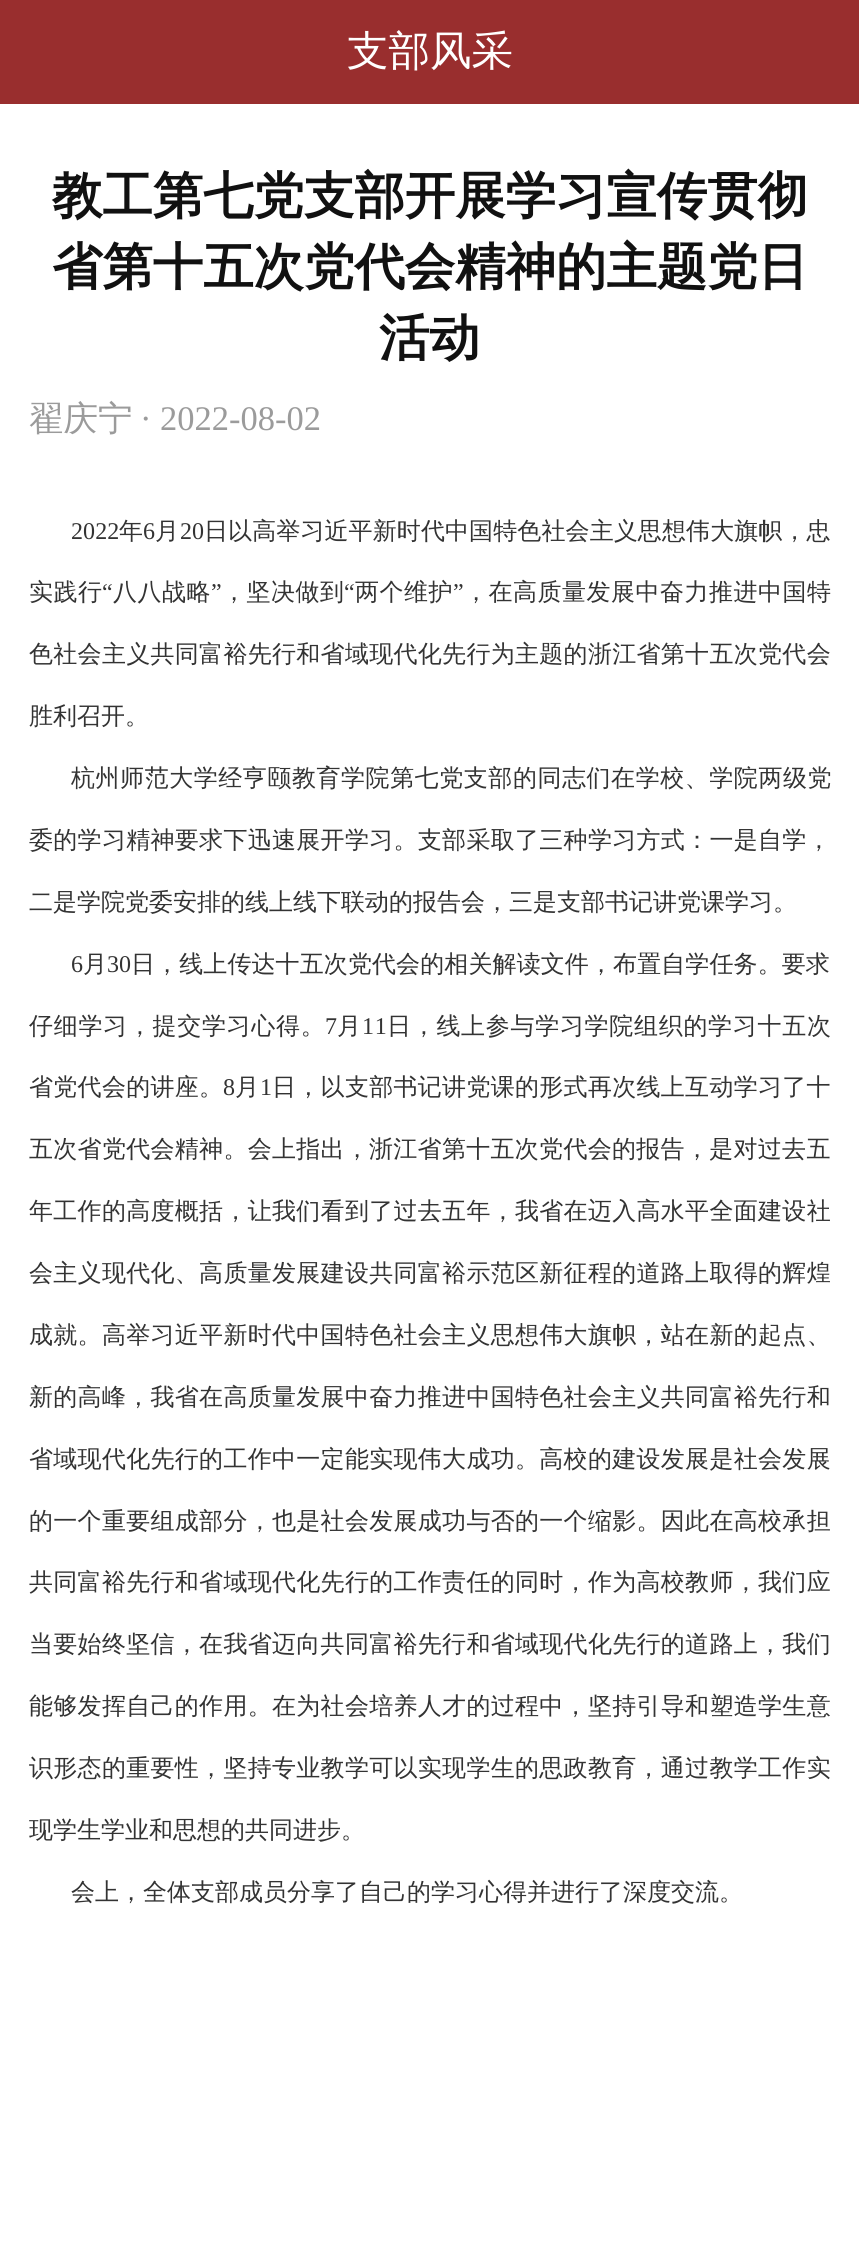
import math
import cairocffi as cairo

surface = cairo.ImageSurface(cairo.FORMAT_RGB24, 859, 2244)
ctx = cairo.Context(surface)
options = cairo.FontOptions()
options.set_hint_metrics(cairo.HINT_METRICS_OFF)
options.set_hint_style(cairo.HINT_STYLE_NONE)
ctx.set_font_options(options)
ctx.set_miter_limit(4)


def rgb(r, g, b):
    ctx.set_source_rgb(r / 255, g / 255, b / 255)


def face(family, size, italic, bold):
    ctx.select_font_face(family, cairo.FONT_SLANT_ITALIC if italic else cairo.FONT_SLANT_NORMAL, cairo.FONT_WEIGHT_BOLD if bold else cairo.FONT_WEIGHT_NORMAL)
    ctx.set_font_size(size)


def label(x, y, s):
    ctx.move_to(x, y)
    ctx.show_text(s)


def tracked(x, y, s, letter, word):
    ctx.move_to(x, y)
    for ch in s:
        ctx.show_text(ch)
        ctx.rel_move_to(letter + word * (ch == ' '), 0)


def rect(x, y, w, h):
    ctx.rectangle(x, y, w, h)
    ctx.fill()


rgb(255, 255, 255)
ctx.paint()
rgb(153, 46, 46)
rect(0, 0, 859, 104)
face('WenQuanYi Zen Hei Medium', 41.5, 0, 0)
rgb(255, 255, 255)
label(347, 65, '支部风采')
face('WenQuanYi Zen Hei', 50.4, 0, 1)
rgb(17, 17, 17)
label(52, 213, '教工第七党支部开展学习宣传贯彻')
label(52, 284, '省第十五次党代会精神的主题党日')
label(379, 355, '活动')
face('WenQuanYi Zen Hei Medium', 34.5, 0, 0)
rgb(155, 155, 155)
label(29, 430, '翟庆宁')
face('Liberation Serif', 34.5, 0, 0)
label(140, 430, '· 2022-08-02')
face('Liberation Serif', 24, 0, 0)
rgb(51, 51, 51)
tracked(71, 539, '2022', 0.1, 0)
face('WenQuanYi Zen Hei Medium', 24, 0, 0)
tracked(119, 539, '年', 0.1, 0)
face('Liberation Serif', 24, 0, 0)
tracked(143, 539, '6', 0.1, 0)
face('WenQuanYi Zen Hei Medium', 24, 0, 0)
tracked(155, 539, '月', 0.1, 0)
face('Liberation Serif', 24, 0, 0)
tracked(180, 539, '20', 0.1, 0)
face('WenQuanYi Zen Hei Medium', 24, 0, 0)
tracked(204, 539, '日以高举习近平新时代中国特色社会主义思想伟大旗帜，忠', 0.1, 0)
tracked(29, 600, '实践行', 0.5, 0)
face('Liberation Serif', 24, 0, 0)
tracked(102, 600, '“', 0.5, 0)
face('WenQuanYi Zen Hei Medium', 24, 0, 0)
tracked(113, 600, '八八战略', 0.5, 0)
face('Liberation Serif', 24, 0, 0)
tracked(211, 600, '”', 0.5, 0)
face('WenQuanYi Zen Hei Medium', 24, 0, 0)
tracked(222, 600, '，坚决做到', 0.5, 0)
face('Liberation Serif', 24, 0, 0)
tracked(344, 600, '“', 0.5, 0)
face('WenQuanYi Zen Hei Medium', 24, 0, 0)
tracked(355, 600, '两个维护', 0.5, 0)
face('Liberation Serif', 24, 0, 0)
tracked(453, 600, '”', 0.5, 0)
face('WenQuanYi Zen Hei Medium', 24, 0, 0)
tracked(464, 600, '，在高质量发展中奋力推进中国特', 0.5, 0)
tracked(29, 662, '色社会主义共同富裕先行和省域现代化先行为主题的浙江省第十五次党代会', 0.3, 0)
label(29, 724, '胜利召开。')
tracked(71, 786, '杭州师范大学经亨颐教育学院第七党支部的同志们在学校、学院两级党', 0.55, 0)
tracked(29, 848, '委的学习精神要求下迅速展开学习。支部采取了三种学习方式：一是自学，', 0.3, 0)
label(29, 910, '二是学院党委安排的线上线下联动的报告会，三是支部书记讲党课学习。')
face('Liberation Serif', 24, 0, 0)
tracked(71, 972, '6', 0.1, 0)
face('WenQuanYi Zen Hei Medium', 24, 0, 0)
tracked(83, 972, '月', 0.1, 0)
face('Liberation Serif', 24, 0, 0)
tracked(107, 972, '30', 0.1, 0)
face('WenQuanYi Zen Hei Medium', 24, 0, 0)
tracked(131, 972, '日，线上传达十五次党代会的相关解读文件，布置自学任务。要求', 0.1, 0)
tracked(29, 1034, '仔细学习，提交学习心得。', 0.7, 0)
face('Liberation Serif', 24, 0, 0)
tracked(325, 1034, '7', 0.7, 0)
face('WenQuanYi Zen Hei Medium', 24, 0, 0)
tracked(337, 1034, '月', 0.7, 0)
face('Liberation Serif', 24, 0, 0)
tracked(362, 1034, '11', 0.7, 0)
face('WenQuanYi Zen Hei Medium', 24, 0, 0)
tracked(387, 1034, '日，线上参与学习学院组织的学习十五次', 0.7, 0)
tracked(29, 1095, '省党代会的讲座。', 0.3, 0)
face('Liberation Serif', 24, 0, 0)
tracked(223, 1095, '8', 0.3, 0)
face('WenQuanYi Zen Hei Medium', 24, 0, 0)
tracked(235, 1095, '月', 0.3, 0)
face('Liberation Serif', 24, 0, 0)
tracked(260, 1095, '1', 0.3, 0)
face('WenQuanYi Zen Hei Medium', 24, 0, 0)
tracked(272, 1095, '日，以支部书记讲党课的形式再次线上互动学习了十', 0.3, 0)
tracked(29, 1157, '五次省党代会精神。会上指出，', 0.3, 0)
tracked(369, 1157, '浙江省第十五次党代会的报告，是对过去五', 0.3, 0)
tracked(29, 1219, '年工作的高度概括，让我们看到了过去五年，我省在迈入高水平全面建设社', 0.3, 0)
tracked(29, 1281, '会主义现代化、高质量发展建设共同富裕示范区新征程的道路上取得的辉煌', 0.3, 0)
tracked(29, 1343, '成就。高举习近平新时代中国特色社会主义思想伟大旗帜，站在新的起点、', 0.3, 0)
tracked(29, 1405, '新的高峰，我省在高质量发展中奋力推进中国特色社会主义共同富裕先行和', 0.3, 0)
tracked(29, 1467, '省域现代化先行的工作中一定能实现伟大成功。高校的建设发展是社会发展', 0.3, 0)
tracked(29, 1529, '的一个重要组成部分，也是社会发展成功与否的一个缩影。因此在高校承担', 0.3, 0)
tracked(29, 1590, '共同富裕先行和省域现代化先行的工作责任的同时，作为高校教师，我们应', 0.3, 0)
tracked(29, 1652, '当要始终坚信，在我省迈向共同富裕先行和省域现代化先行的道路上，我们', 0.3, 0)
tracked(29, 1714, '能够发挥自己的作用。在为社会培养人才的过程中，坚持引导和塑造学生意', 0.3, 0)
tracked(29, 1776, '识形态的重要性，坚持专业教学可以实现学生的思政教育，通过教学工作实', 0.3, 0)
label(29, 1838, '现学生学业和思想的共同进步。')
label(71, 1900, '会上，全体支部成员分享了自己的学习心得并进行了深度交流。')
surface.write_to_png('render.png')
